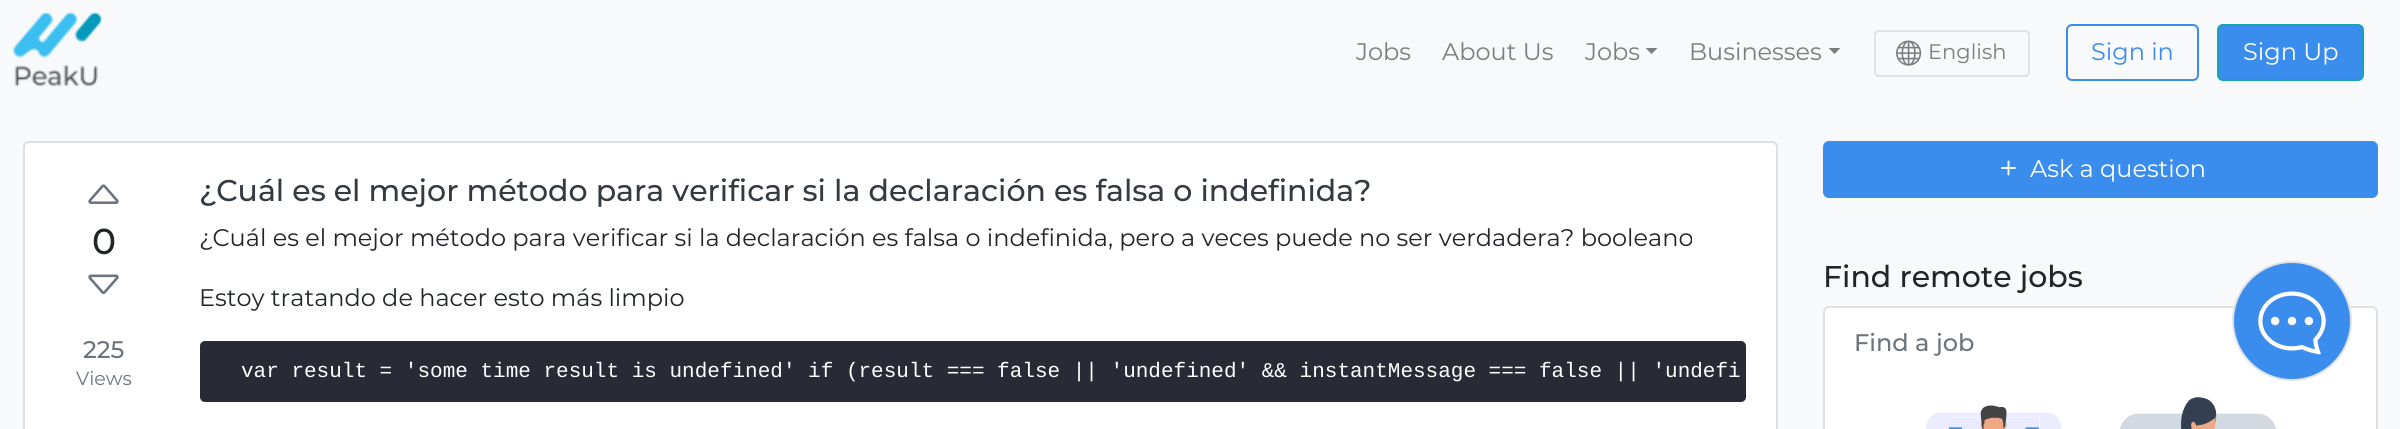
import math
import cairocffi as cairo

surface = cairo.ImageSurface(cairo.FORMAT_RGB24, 2400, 429)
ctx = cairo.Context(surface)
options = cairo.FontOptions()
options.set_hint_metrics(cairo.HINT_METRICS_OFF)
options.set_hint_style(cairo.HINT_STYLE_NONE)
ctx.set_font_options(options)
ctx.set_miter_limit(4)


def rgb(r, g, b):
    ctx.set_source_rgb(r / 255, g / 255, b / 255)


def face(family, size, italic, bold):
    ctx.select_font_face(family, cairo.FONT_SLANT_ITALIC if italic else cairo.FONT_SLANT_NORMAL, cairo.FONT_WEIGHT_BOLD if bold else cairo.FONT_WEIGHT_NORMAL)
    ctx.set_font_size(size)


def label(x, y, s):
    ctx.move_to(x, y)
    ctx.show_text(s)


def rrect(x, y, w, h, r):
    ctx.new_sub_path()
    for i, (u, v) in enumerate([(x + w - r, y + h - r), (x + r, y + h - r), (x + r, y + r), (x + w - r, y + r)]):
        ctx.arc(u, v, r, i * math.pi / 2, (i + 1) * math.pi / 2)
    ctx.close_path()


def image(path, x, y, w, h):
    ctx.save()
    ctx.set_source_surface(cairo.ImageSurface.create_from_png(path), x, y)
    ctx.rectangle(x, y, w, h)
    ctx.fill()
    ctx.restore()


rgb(248, 249, 250)
ctx.paint()
image('image0.png', 13, 12, 89, 75)
face('Montserrat', 24, 0, 0)
rgb(124, 125, 125)
label(1356, 60, 'Jobs')
label(1442, 60, 'About Us')
label(1585, 60, 'Jobs')
ctx.new_path()
ctx.move_to(1645.5, 48)
ctx.line_to(1657.5, 48)
ctx.line_to(1651.5, 54)
ctx.close_path()
ctx.fill()
label(1689, 60, 'Businesses')
ctx.new_path()
ctx.move_to(1828.5, 48)
ctx.line_to(1840.5, 48)
ctx.line_to(1834.5, 54)
ctx.close_path()
ctx.fill()
rrect(1875, 31, 154, 45, 4)
rgb(222, 226, 230)
ctx.stroke()
image('image1.png', 1896, 40, 26, 26)
face('Montserrat', 21, 0, 0)
rgb(124, 125, 125)
label(1928, 59, 'English')
rrect(2067, 25, 131, 55, 5)
rgb(58, 140, 237)
ctx.stroke()
face('Montserrat', 24, 0, 0)
label(2091, 60, 'Sign in')
rrect(2218, 25, 145, 55, 5)
ctx.fill_preserve()
rgb(23, 162, 184)
ctx.stroke()
rgb(255, 255, 255)
label(2243, 60, 'Sign Up')
rrect(24, 142, 1753, 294, 5)
ctx.fill_preserve()
rgb(223, 223, 223)
ctx.stroke()
image('image2.png', 88, 184, 31, 20)
face('Montserrat Medium', 36, 0, 0)
rgb(33, 37, 41)
label(92, 254, '0')
image('image3.png', 88, 274, 31, 21)
face('Montserrat Medium', 24, 0, 0)
rgb(108, 117, 125)
label(83, 358, '225')
face('Montserrat', 19, 0, 0)
label(76, 385, 'Views')
face('Montserrat Medium', 30, 0, 0)
rgb(52, 58, 64)
label(199, 201, '¿Cuál es el mejor método para verificar si la declaración es falsa o indefinida?')
face('Montserrat', 24, 0, 0)
rgb(33, 37, 41)
label(199, 246, '¿Cuál es el mejor método para verificar si la declaración es falsa o indefinida, pero a veces puede no ser verdadera? booleano')
label(199, 306, 'Estoy tratando de hacer esto más limpio')
rgb(40, 42, 53)
rrect(200, 341, 1546, 61, 5)
ctx.fill()
face('Liberation Mono', 21, 0, 0)
rgb(255, 255, 255)
label(241, 377, 'var result = \'some time result is undefined\' if (result === false || \'undefined\' && instantMessage === false || \'undefi')
rgb(58, 140, 237)
rrect(1823, 141, 555, 57, 6)
ctx.fill()
image('image4.png', 2001, 160, 15, 16)
face('Montserrat', 24, 0, 0)
rgb(255, 255, 255)
label(2030, 177, 'Ask a question')
face('Montserrat Medium', 30, 0, 0)
rgb(33, 37, 41)
label(1823, 287, 'Find remote jobs')
rgb(255, 255, 255)
ctx.new_path()
ctx.move_to(1829, 306)
ctx.line_to(2372, 306)
ctx.curve_to(2375.5, 306, 2378, 308.5, 2378, 312)
ctx.line_to(2378, 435)
ctx.line_to(1823, 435)
ctx.line_to(1823, 312)
ctx.curve_to(1823, 308.5, 1825.5, 306, 1829, 306)
ctx.close_path()
ctx.fill()
rrect(1824, 307, 553, 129, 5)
rgb(223, 223, 223)
ctx.stroke()
face('Montserrat Medium', 24, 0, 0)
rgb(108, 117, 125)
label(1854, 351, 'Find a job')
image('image5.png', 1926, 397, 350, 32)
rgb(58, 140, 237)
ctx.arc(2292, 321, 59, 0, 2 * math.pi)
ctx.fill_preserve()
rgb(222, 226, 230)
ctx.stroke()
image('image6.png', 2258, 291, 68, 64)
surface.write_to_png('render.png')
